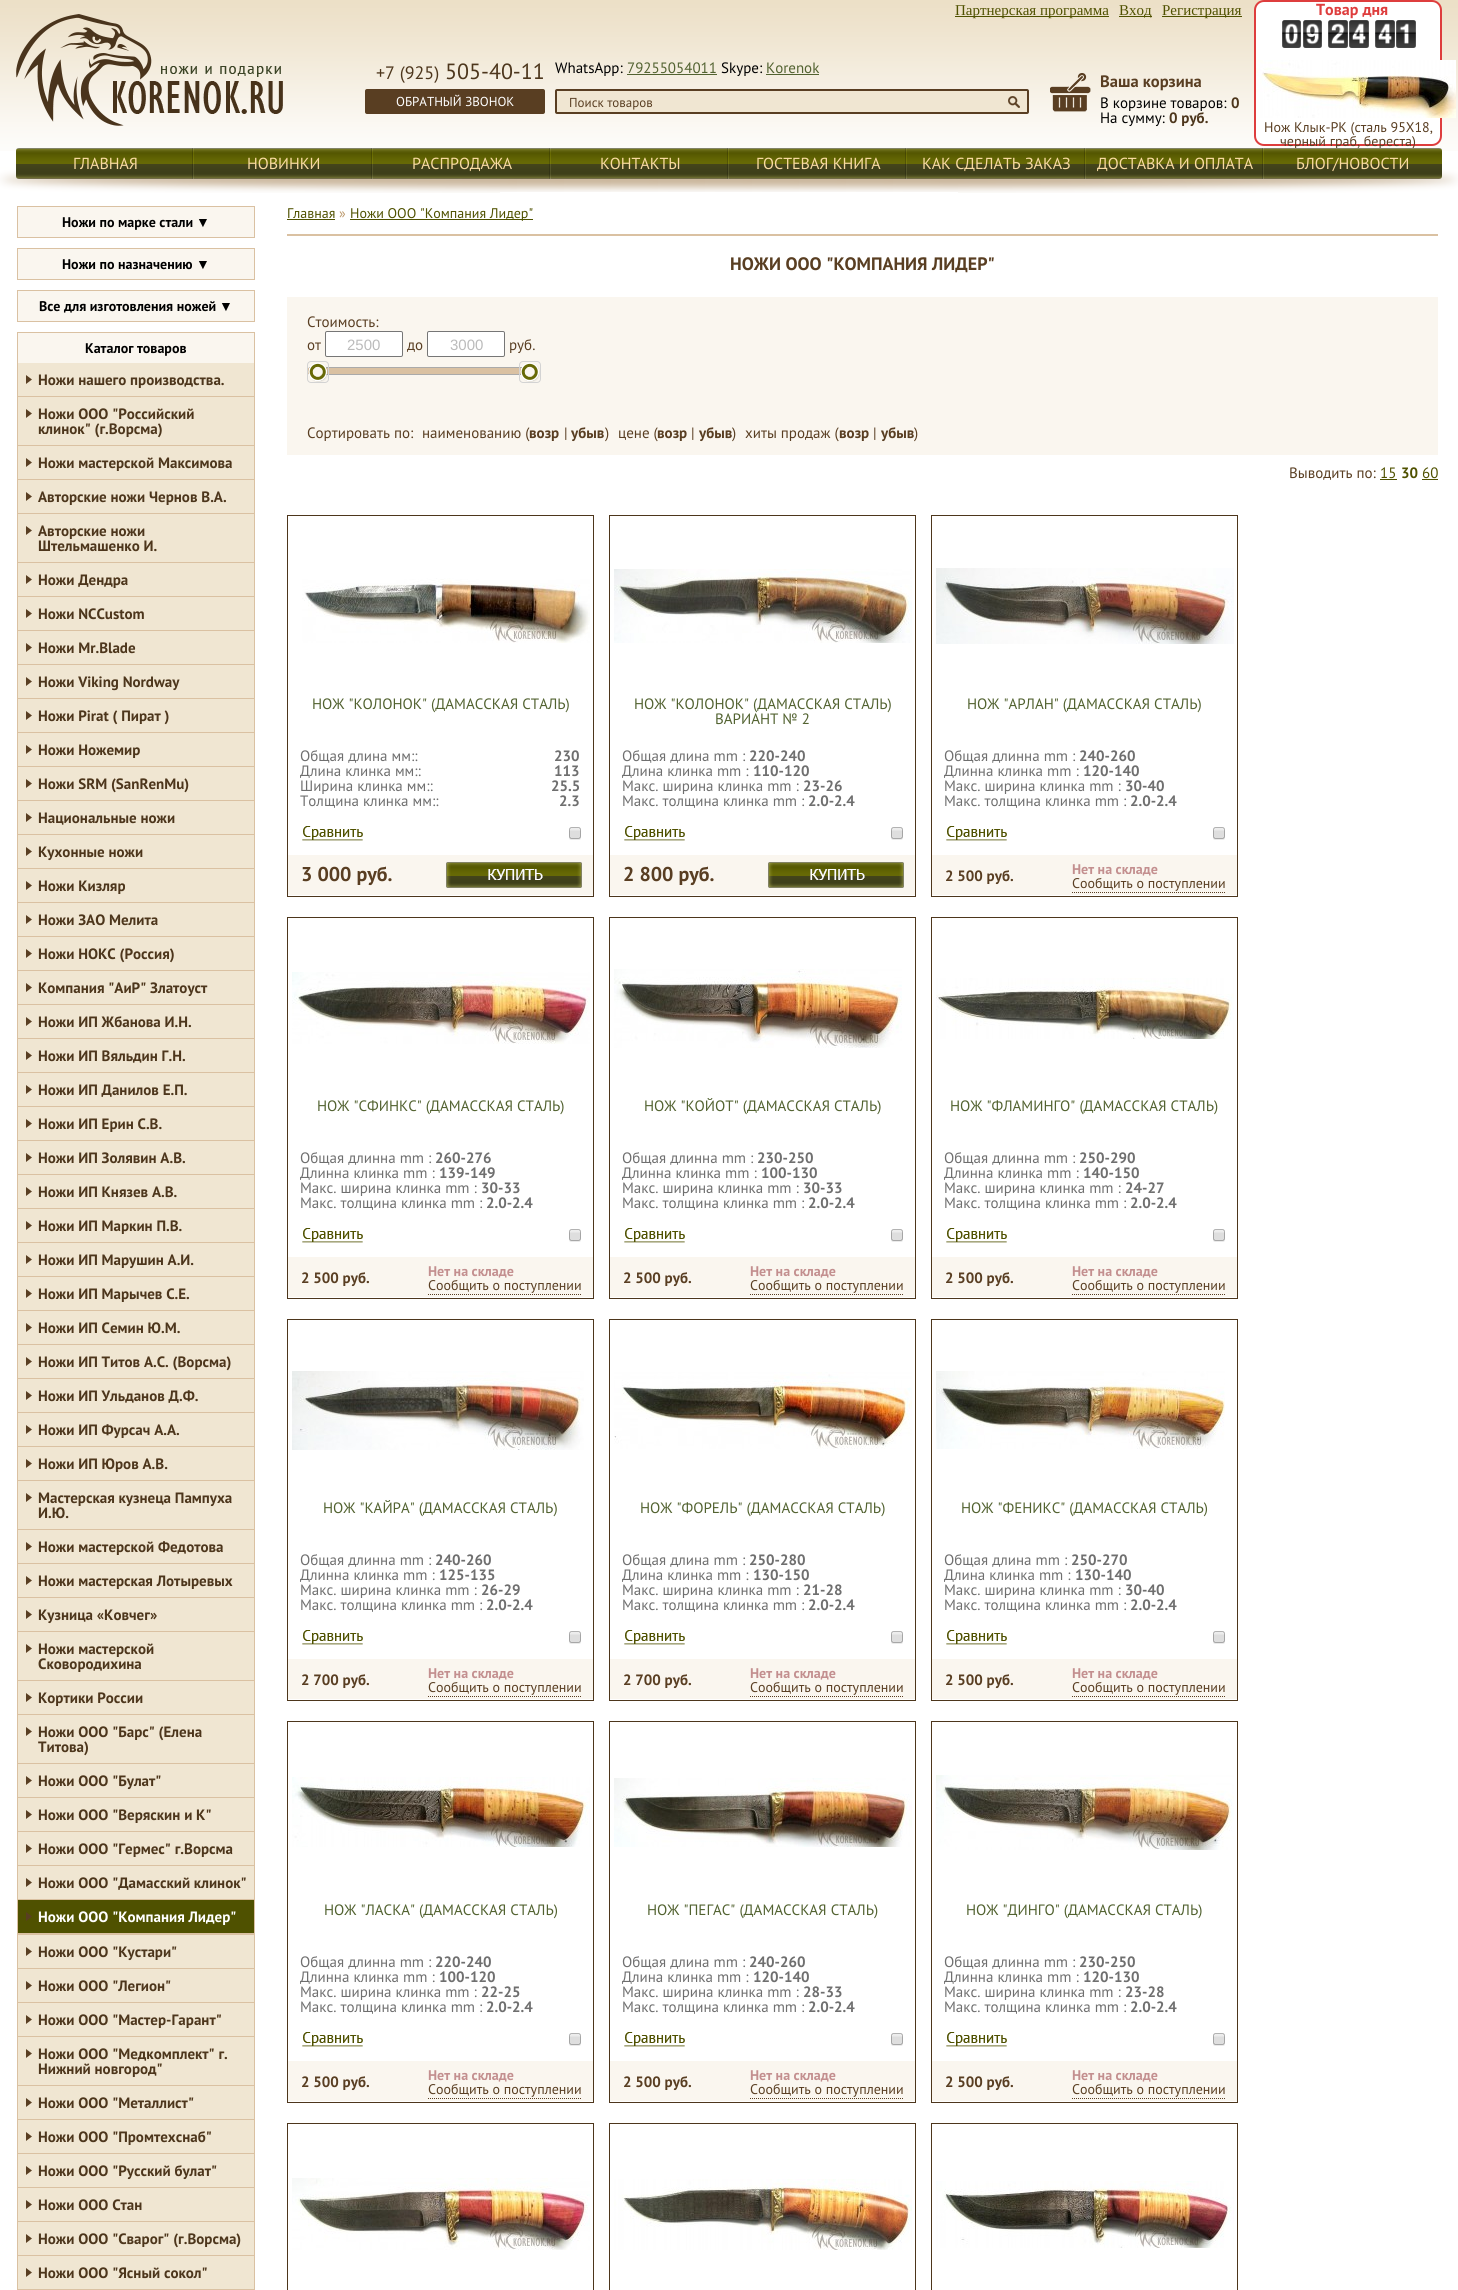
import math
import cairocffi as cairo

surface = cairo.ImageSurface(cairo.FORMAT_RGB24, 1458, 2290)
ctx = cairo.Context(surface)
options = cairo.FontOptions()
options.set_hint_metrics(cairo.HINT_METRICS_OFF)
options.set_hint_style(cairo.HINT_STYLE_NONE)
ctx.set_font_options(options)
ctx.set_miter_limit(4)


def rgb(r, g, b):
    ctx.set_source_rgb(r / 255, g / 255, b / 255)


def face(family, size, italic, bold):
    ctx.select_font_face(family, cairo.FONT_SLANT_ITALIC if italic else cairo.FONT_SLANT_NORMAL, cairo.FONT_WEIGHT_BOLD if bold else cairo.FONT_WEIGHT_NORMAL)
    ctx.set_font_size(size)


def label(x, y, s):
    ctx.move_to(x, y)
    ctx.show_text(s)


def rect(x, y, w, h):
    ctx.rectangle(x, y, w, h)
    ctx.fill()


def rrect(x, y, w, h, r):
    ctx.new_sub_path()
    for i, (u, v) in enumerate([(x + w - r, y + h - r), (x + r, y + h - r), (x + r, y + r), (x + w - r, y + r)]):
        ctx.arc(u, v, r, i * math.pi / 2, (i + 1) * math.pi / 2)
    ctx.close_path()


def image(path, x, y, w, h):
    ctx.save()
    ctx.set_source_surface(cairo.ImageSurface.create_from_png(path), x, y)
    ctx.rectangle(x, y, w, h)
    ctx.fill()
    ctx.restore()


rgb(255, 255, 255)
ctx.paint()
image('image0.png', 0, 0, 1458, 151)
image('image1.png', 500, 179, 458, 13)
rgb(79, 81, 0)
rect(955, 16, 154, 1)
face('Liberation Serif', 15, 0, 0)
label(955, 15, 'Партнерская программа')
rect(1119, 16, 33, 1)
label(1119, 15, 'Вход')
rect(1162, 16, 80, 1)
label(1162, 15, 'Регистрация')
rgb(255, 255, 255)
rrect(1255, 1, 186, 144, 9)
ctx.fill_preserve()
rgb(222, 61, 61)
ctx.stroke()
face('PT Sans', 16, 0, 1)
label(1316, 15, 'Товар дня')
image('image2.png', 16, 14, 267, 112)
face('PT Sans', 18, 0, 0)
rgb(77, 54, 28)
label(376, 79, '+7 (925)')
face('PT Sans', 22, 0, 0)
label(445, 79, '505-40-11')
rgb(89, 62, 34)
rrect(365, 89, 180, 25, 2)
ctx.fill()
face('PT Sans', 13, 0, 0)
rgb(255, 255, 255)
label(396, 106, 'ОБРАТНЫЙ ЗВОНОК')
face('PT Sans', 15, 0, 0)
rgb(0, 0, 0)
label(555, 73, 'WhatsApp:')
rgb(82, 98, 48)
label(627, 73, '79255054011')
rect(627, 74, 90, 1)
rgb(0, 0, 0)
label(721, 73, 'Skype:')
rgb(82, 98, 48)
label(766, 73, 'Korenok')
rect(766, 74, 53, 1)
rgb(240, 230, 210)
rrect(556, 90, 472, 23, 1)
ctx.fill_preserve()
rgb(89, 62, 34)
ctx.stroke()
face('PT Sans', 13, 0, 0)
label(569, 107, 'Поиск товаров')
image('image3.png', 1008, 96, 12, 12)
image('image4.png', 1050, 73, 41, 39)
face('PT Sans', 16.5, 0, 1)
label(1100, 87, 'Ваша корзина')
face('PT Sans', 15, 0, 0)
rgb(0, 0, 0)
label(1100, 108, 'В корзине товаров:')
face('PT Sans', 15, 0, 1)
rgb(77, 54, 28)
label(1231, 108, '0')
face('PT Sans', 15, 0, 0)
rgb(0, 0, 0)
label(1100, 123, 'На сумму:')
face('PT Sans', 15, 0, 1)
rgb(77, 54, 28)
label(1169, 123, '0 руб.')
image('image5.png', 1282, 20, 19, 28)
image('image6.png', 1303, 20, 19, 28)
image('image7.png', 1328, 20, 20, 28)
image('image8.png', 1349, 20, 20, 28)
image('image8.png', 1375, 20, 20, 28)
image('image9.png', 1396, 20, 20, 28)
image('image10.png', 1256, 60, 200, 58)
face('PT Sans', 14, 0, 0)
rgb(89, 62, 34)
label(1264, 132, 'Нож Клык-РК (сталь 95Х18,')
label(1280, 146, 'черный граб, береста)')
image('image13.png', 0, 167, 500, 26)
image('image14.png', 958, 167, 500, 26)
image('image11.png', 16, 148, 1426, 31)
image('image12.png', 192, 148, 2, 31)
face('PT Sans', 16, 0, 0)
rgb(249, 219, 162)
label(73, 169, 'ГЛАВНАЯ')
image('image12.png', 371, 148, 2, 31)
label(247, 169, 'НОВИНКИ')
image('image12.png', 549, 148, 2, 31)
label(412, 169, 'РАСПРОДАЖА')
image('image12.png', 727, 148, 2, 31)
label(600, 169, 'КОНТАКТЫ')
image('image12.png', 905, 148, 2, 31)
label(756, 169, 'ГОСТЕВАЯ КНИГА')
image('image12.png', 1084, 148, 2, 31)
label(922, 169, 'КАК СДЕЛАТЬ ЗАКАЗ')
image('image12.png', 1262, 148, 2, 31)
label(1097, 169, 'ДОСТАВКА И ОПЛАТА')
label(1296, 169, 'БЛОГ/НОВОСТИ')
rgb(250, 246, 239)
ctx.rectangle(17.5, 206.5, 237, 31)
ctx.fill_preserve()
rgb(218, 193, 162)
ctx.set_line_width(1)
ctx.stroke()
face('PT Sans', 14, 0, 1)
rgb(0, 0, 0)
label(62, 227, 'Ножи по марке стали')
face('Liberation Serif', 14, 0, 1)
label(196, 227, '▼')
rgb(250, 246, 239)
ctx.rectangle(17.5, 248.5, 237, 31)
ctx.fill_preserve()
rgb(218, 193, 162)
ctx.stroke()
face('PT Sans', 14, 0, 1)
rgb(0, 0, 0)
label(62, 269, 'Ножи по назначению')
face('Liberation Serif', 14, 0, 1)
label(196, 269, '▼')
rgb(250, 246, 239)
ctx.rectangle(17.5, 290.5, 237, 31)
ctx.fill_preserve()
rgb(218, 193, 162)
ctx.stroke()
face('PT Sans', 14, 0, 1)
rgb(0, 0, 0)
label(39, 311, 'Все для изготовления ножей')
face('Liberation Serif', 14, 0, 1)
label(219, 311, '▼')
rgb(250, 246, 239)
rect(18, 333, 236, 30)
ctx.rectangle(17.5, 332.5, 237, 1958)
rgb(218, 193, 162)
ctx.stroke()
face('PT Sans', 14, 0, 1)
rgb(0, 0, 0)
label(85, 353, 'Каталог товаров')
rgb(240, 230, 210)
rect(18, 363, 236, 33)
rgb(218, 193, 162)
rect(18, 396, 236, 1)
image('image15.png', 26, 375, 6, 9)
face('PT Sans', 15, 0, 1)
rgb(77, 54, 28)
label(38, 385, 'Ножи нашего производства.')
rgb(240, 230, 210)
rect(18, 397, 236, 48)
rgb(218, 193, 162)
rect(18, 445, 236, 1)
image('image15.png', 26, 409, 6, 9)
rgb(77, 54, 28)
label(38, 419, 'Ножи ООО "Российский')
label(38, 434, 'клинок" (г.Ворсма)')
rgb(240, 230, 210)
rect(18, 446, 236, 33)
rgb(218, 193, 162)
rect(18, 479, 236, 1)
image('image15.png', 26, 458, 6, 9)
rgb(77, 54, 28)
label(38, 468, 'Ножи мастерской Максимова')
rgb(240, 230, 210)
rect(18, 480, 236, 33)
rgb(218, 193, 162)
rect(18, 513, 236, 1)
image('image15.png', 26, 492, 6, 9)
rgb(77, 54, 28)
label(38, 502, 'Авторские ножи Чернов В.А.')
rgb(240, 230, 210)
rect(18, 514, 236, 48)
rgb(218, 193, 162)
rect(18, 562, 236, 1)
image('image15.png', 26, 526, 6, 9)
rgb(77, 54, 28)
label(38, 536, 'Авторские ножи')
label(38, 551, 'Штельмашенко И.')
rgb(240, 230, 210)
rect(18, 563, 236, 33)
rgb(218, 193, 162)
rect(18, 596, 236, 1)
image('image15.png', 26, 575, 6, 9)
rgb(77, 54, 28)
label(38, 585, 'Ножи Дендра')
rgb(240, 230, 210)
rect(18, 597, 236, 33)
rgb(218, 193, 162)
rect(18, 630, 236, 1)
image('image15.png', 26, 609, 6, 9)
rgb(77, 54, 28)
label(38, 619, 'Ножи NCCustom')
rgb(240, 230, 210)
rect(18, 631, 236, 33)
rgb(218, 193, 162)
rect(18, 664, 236, 1)
image('image15.png', 26, 643, 6, 9)
rgb(77, 54, 28)
label(38, 653, 'Ножи Mr.Blade')
rgb(240, 230, 210)
rect(18, 665, 236, 33)
rgb(218, 193, 162)
rect(18, 698, 236, 1)
image('image15.png', 26, 677, 6, 9)
rgb(77, 54, 28)
label(38, 687, 'Ножи Viking Nordway')
rgb(240, 230, 210)
rect(18, 699, 236, 33)
rgb(218, 193, 162)
rect(18, 732, 236, 1)
image('image15.png', 26, 711, 6, 9)
rgb(77, 54, 28)
label(38, 721, 'Ножи Pirat ( Пират )')
rgb(240, 230, 210)
rect(18, 733, 236, 33)
rgb(218, 193, 162)
rect(18, 766, 236, 1)
image('image15.png', 26, 745, 6, 9)
rgb(77, 54, 28)
label(38, 755, 'Ножи Ножемир')
rgb(240, 230, 210)
rect(18, 767, 236, 33)
rgb(218, 193, 162)
rect(18, 800, 236, 1)
image('image15.png', 26, 779, 6, 9)
rgb(77, 54, 28)
label(38, 789, 'Ножи SRM (SanRenMu)')
rgb(240, 230, 210)
rect(18, 801, 236, 33)
rgb(218, 193, 162)
rect(18, 834, 236, 1)
image('image15.png', 26, 813, 6, 9)
rgb(77, 54, 28)
label(38, 823, 'Национальные ножи')
rgb(240, 230, 210)
rect(18, 835, 236, 33)
rgb(218, 193, 162)
rect(18, 868, 236, 1)
image('image15.png', 26, 847, 6, 9)
rgb(77, 54, 28)
label(38, 857, 'Кухонные ножи')
rgb(240, 230, 210)
rect(18, 869, 236, 33)
rgb(218, 193, 162)
rect(18, 902, 236, 1)
image('image15.png', 26, 881, 6, 9)
rgb(77, 54, 28)
label(38, 891, 'Ножи Кизляр')
rgb(240, 230, 210)
rect(18, 903, 236, 33)
rgb(218, 193, 162)
rect(18, 936, 236, 1)
image('image15.png', 26, 915, 6, 9)
rgb(77, 54, 28)
label(38, 925, 'Ножи ЗАО Мелита')
rgb(240, 230, 210)
rect(18, 937, 236, 33)
rgb(218, 193, 162)
rect(18, 970, 236, 1)
image('image15.png', 26, 949, 6, 9)
rgb(77, 54, 28)
label(38, 959, 'Ножи НОКС (Россия)')
rgb(240, 230, 210)
rect(18, 971, 236, 33)
rgb(218, 193, 162)
rect(18, 1004, 236, 1)
image('image15.png', 26, 983, 6, 9)
rgb(77, 54, 28)
label(38, 993, 'Компания "АиР" Златоуст')
rgb(240, 230, 210)
rect(18, 1005, 236, 33)
rgb(218, 193, 162)
rect(18, 1038, 236, 1)
image('image15.png', 26, 1017, 6, 9)
rgb(77, 54, 28)
label(38, 1027, 'Ножи ИП Жбанова И.Н.')
rgb(240, 230, 210)
rect(18, 1039, 236, 33)
rgb(218, 193, 162)
rect(18, 1072, 236, 1)
image('image15.png', 26, 1051, 6, 9)
rgb(77, 54, 28)
label(38, 1061, 'Ножи ИП Вяльдин Г.Н.')
rgb(240, 230, 210)
rect(18, 1073, 236, 33)
rgb(218, 193, 162)
rect(18, 1106, 236, 1)
image('image15.png', 26, 1085, 6, 9)
rgb(77, 54, 28)
label(38, 1095, 'Ножи ИП Данилов Е.П.')
rgb(240, 230, 210)
rect(18, 1107, 236, 33)
rgb(218, 193, 162)
rect(18, 1140, 236, 1)
image('image15.png', 26, 1119, 6, 9)
rgb(77, 54, 28)
label(38, 1129, 'Ножи ИП Ерин С.В.')
rgb(240, 230, 210)
rect(18, 1141, 236, 33)
rgb(218, 193, 162)
rect(18, 1174, 236, 1)
image('image15.png', 26, 1153, 6, 9)
rgb(77, 54, 28)
label(38, 1163, 'Ножи ИП Золявин А.В.')
rgb(240, 230, 210)
rect(18, 1175, 236, 33)
rgb(218, 193, 162)
rect(18, 1208, 236, 1)
image('image15.png', 26, 1187, 6, 9)
rgb(77, 54, 28)
label(38, 1197, 'Ножи ИП Князев А.В.')
rgb(240, 230, 210)
rect(18, 1209, 236, 33)
rgb(218, 193, 162)
rect(18, 1242, 236, 1)
image('image15.png', 26, 1221, 6, 9)
rgb(77, 54, 28)
label(38, 1231, 'Ножи ИП Маркин П.В.')
rgb(240, 230, 210)
rect(18, 1243, 236, 33)
rgb(218, 193, 162)
rect(18, 1276, 236, 1)
image('image15.png', 26, 1255, 6, 9)
rgb(77, 54, 28)
label(38, 1265, 'Ножи ИП Марушин А.И.')
rgb(240, 230, 210)
rect(18, 1277, 236, 33)
rgb(218, 193, 162)
rect(18, 1310, 236, 1)
image('image15.png', 26, 1289, 6, 9)
rgb(77, 54, 28)
label(38, 1299, 'Ножи ИП Марычев С.Е.')
rgb(240, 230, 210)
rect(18, 1311, 236, 33)
rgb(218, 193, 162)
rect(18, 1344, 236, 1)
image('image15.png', 26, 1323, 6, 9)
rgb(77, 54, 28)
label(38, 1333, 'Ножи ИП Семин Ю.М.')
rgb(240, 230, 210)
rect(18, 1345, 236, 33)
rgb(218, 193, 162)
rect(18, 1378, 236, 1)
image('image15.png', 26, 1357, 6, 9)
rgb(77, 54, 28)
label(38, 1367, 'Ножи ИП Титов A.C. (Ворсма)')
rgb(240, 230, 210)
rect(18, 1379, 236, 33)
rgb(218, 193, 162)
rect(18, 1412, 236, 1)
image('image15.png', 26, 1391, 6, 9)
rgb(77, 54, 28)
label(38, 1401, 'Ножи ИП Ульданов Д.Ф.')
rgb(240, 230, 210)
rect(18, 1413, 236, 33)
rgb(218, 193, 162)
rect(18, 1446, 236, 1)
image('image15.png', 26, 1425, 6, 9)
rgb(77, 54, 28)
label(38, 1435, 'Ножи ИП Фурсач А.А.')
rgb(240, 230, 210)
rect(18, 1447, 236, 33)
rgb(218, 193, 162)
rect(18, 1480, 236, 1)
image('image15.png', 26, 1459, 6, 9)
rgb(77, 54, 28)
label(38, 1469, 'Ножи ИП Юров А.В.')
rgb(240, 230, 210)
rect(18, 1481, 236, 48)
rgb(218, 193, 162)
rect(18, 1529, 236, 1)
image('image15.png', 26, 1493, 6, 9)
rgb(77, 54, 28)
label(38, 1503, 'Мастерская кузнеца Пампуха')
label(38, 1518, 'И.Ю.')
rgb(240, 230, 210)
rect(18, 1530, 236, 33)
rgb(218, 193, 162)
rect(18, 1563, 236, 1)
image('image15.png', 26, 1542, 6, 9)
rgb(77, 54, 28)
label(38, 1552, 'Ножи мастерской Федотова')
rgb(240, 230, 210)
rect(18, 1564, 236, 33)
rgb(218, 193, 162)
rect(18, 1597, 236, 1)
image('image15.png', 26, 1576, 6, 9)
rgb(77, 54, 28)
label(38, 1586, 'Ножи мастерская Лотыревых')
rgb(240, 230, 210)
rect(18, 1598, 236, 33)
rgb(218, 193, 162)
rect(18, 1631, 236, 1)
image('image15.png', 26, 1610, 6, 9)
rgb(77, 54, 28)
label(38, 1620, 'Кузница «Ковчег»')
rgb(240, 230, 210)
rect(18, 1632, 236, 48)
rgb(218, 193, 162)
rect(18, 1680, 236, 1)
image('image15.png', 26, 1644, 6, 9)
rgb(77, 54, 28)
label(38, 1654, 'Ножи мастерской')
label(38, 1669, 'Сковородихина')
rgb(240, 230, 210)
rect(18, 1681, 236, 33)
rgb(218, 193, 162)
rect(18, 1714, 236, 1)
image('image15.png', 26, 1693, 6, 9)
rgb(77, 54, 28)
label(38, 1703, 'Кортики России')
rgb(240, 230, 210)
rect(18, 1715, 236, 48)
rgb(218, 193, 162)
rect(18, 1763, 236, 1)
image('image15.png', 26, 1727, 6, 9)
rgb(77, 54, 28)
label(38, 1737, 'Ножи ООО "Барс" (Елена')
label(38, 1752, 'Титова)')
rgb(240, 230, 210)
rect(18, 1764, 236, 33)
rgb(218, 193, 162)
rect(18, 1797, 236, 1)
image('image15.png', 26, 1776, 6, 9)
rgb(77, 54, 28)
label(38, 1786, 'Ножи ООО "Булат"')
rgb(240, 230, 210)
rect(18, 1798, 236, 33)
rgb(218, 193, 162)
rect(18, 1831, 236, 1)
image('image15.png', 26, 1810, 6, 9)
rgb(77, 54, 28)
label(38, 1820, 'Ножи ООО "Веряскин и К"')
rgb(240, 230, 210)
rect(18, 1832, 236, 33)
rgb(218, 193, 162)
rect(18, 1865, 236, 1)
image('image15.png', 26, 1844, 6, 9)
rgb(77, 54, 28)
label(38, 1854, 'Ножи ООО "Гермес" г.Ворсма')
rgb(240, 230, 210)
rect(18, 1866, 236, 33)
rgb(218, 193, 162)
rect(18, 1899, 236, 1)
image('image15.png', 26, 1878, 6, 9)
rgb(77, 54, 28)
label(38, 1888, 'Ножи ООО "Дамасский клинок"')
rgb(218, 193, 162)
rect(18, 1933, 236, 2)
rgb(79, 81, 0)
rect(18, 1900, 236, 33)
image('image16.png', 26, 1912, 6, 9)
rgb(255, 255, 255)
label(38, 1922, 'Ножи ООО "Компания Лидер"')
rgb(240, 230, 210)
rect(18, 1935, 236, 33)
rgb(218, 193, 162)
rect(18, 1968, 236, 1)
image('image15.png', 26, 1947, 6, 9)
rgb(77, 54, 28)
label(38, 1957, 'Ножи ООО "Кустари"')
rgb(240, 230, 210)
rect(18, 1969, 236, 33)
rgb(218, 193, 162)
rect(18, 2002, 236, 1)
image('image15.png', 26, 1981, 6, 9)
rgb(77, 54, 28)
label(38, 1991, 'Ножи ООО "Легион"')
rgb(240, 230, 210)
rect(18, 2003, 236, 33)
rgb(218, 193, 162)
rect(18, 2036, 236, 1)
image('image15.png', 26, 2015, 6, 9)
rgb(77, 54, 28)
label(38, 2025, 'Ножи ООО "Мастер-Гарант"')
rgb(240, 230, 210)
rect(18, 2037, 236, 48)
rgb(218, 193, 162)
rect(18, 2085, 236, 1)
image('image15.png', 26, 2049, 6, 9)
rgb(77, 54, 28)
label(38, 2059, 'Ножи ООО "Медкомплект" г.')
label(38, 2074, 'Нижний новгород"')
rgb(240, 230, 210)
rect(18, 2086, 236, 33)
rgb(218, 193, 162)
rect(18, 2119, 236, 1)
image('image15.png', 26, 2098, 6, 9)
rgb(77, 54, 28)
label(38, 2108, 'Ножи ООО "Металлист"')
rgb(240, 230, 210)
rect(18, 2120, 236, 33)
rgb(218, 193, 162)
rect(18, 2153, 236, 1)
image('image15.png', 26, 2132, 6, 9)
rgb(77, 54, 28)
label(38, 2142, 'Ножи ООО "Промтехснаб"')
rgb(240, 230, 210)
rect(18, 2154, 236, 33)
rgb(218, 193, 162)
rect(18, 2187, 236, 1)
image('image15.png', 26, 2166, 6, 9)
rgb(77, 54, 28)
label(38, 2176, 'Ножи ООО "Русский булат"')
rgb(240, 230, 210)
rect(18, 2188, 236, 33)
rgb(218, 193, 162)
rect(18, 2221, 236, 1)
image('image15.png', 26, 2200, 6, 9)
rgb(77, 54, 28)
label(38, 2210, 'Ножи ООО Стан')
rgb(240, 230, 210)
rect(18, 2222, 236, 33)
rgb(218, 193, 162)
rect(18, 2255, 236, 1)
image('image15.png', 26, 2234, 6, 9)
rgb(77, 54, 28)
label(38, 2244, 'Ножи ООО "Сварог" (г.Ворсма)')
rgb(240, 230, 210)
rect(18, 2256, 236, 33)
rgb(218, 193, 162)
rect(18, 2289, 236, 1)
image('image15.png', 26, 2268, 6, 9)
rgb(77, 54, 28)
label(38, 2278, 'Ножи ООО "Ясный сокол"')
rgb(218, 193, 162)
rect(287, 234, 1151, 2)
face('PT Sans', 14, 0, 0)
rgb(79, 81, 0)
label(287, 218, 'Главная')
rect(287, 219, 48, 1)
rgb(188, 152, 107)
label(339, 218, '»')
rgb(79, 81, 0)
rect(350, 219, 183, 1)
label(350, 218, 'Ножи ООО "Компания Лидер"')
face('PT Sans', 18, 0, 1)
rgb(89, 62, 34)
label(730, 270, 'НОЖИ ООО "КОМПАНИЯ ЛИДЕР"')
rgb(250, 246, 239)
rect(287, 297, 1151, 158)
face('PT Sans', 15, 0, 0)
rgb(89, 62, 34)
label(307, 327, 'Стоимость:')
label(307, 350, 'от')
rgb(255, 255, 255)
rrect(325.5, 331.5, 77, 25, 1.5)
ctx.fill_preserve()
rgb(118, 118, 118)
ctx.stroke()
face('Liberation Sans', 15, 0, 0)
rgb(187, 187, 187)
label(347, 350, '2500')
face('PT Sans', 15, 0, 0)
rgb(89, 62, 34)
label(407, 350, 'до')
rgb(255, 255, 255)
rrect(427.5, 331.5, 77, 25, 1.5)
ctx.fill_preserve()
rgb(118, 118, 118)
ctx.stroke()
face('Liberation Sans', 15, 0, 0)
rgb(187, 187, 187)
label(450, 350, '3000')
face('PT Sans', 15, 0, 0)
rgb(89, 62, 34)
label(509, 350, 'руб.')
rrect(307.5, 367.5, 228, 7, 3.5)
rgb(170, 170, 170)
ctx.stroke()
rgb(218, 193, 162)
rect(308, 368, 214, 6)
image('image17.png', 308, 362, 20, 20)
rrect(307.5, 361.5, 21, 21, 3.5)
rgb(211, 211, 211)
ctx.stroke()
image('image18.png', 520, 362, 20, 20)
rrect(519.5, 361.5, 21, 21, 3.5)
ctx.stroke()
rgb(89, 62, 34)
label(307, 438, 'Сортировать по:')
label(422, 438, 'наименованию (')
face('PT Sans', 15, 0, 1)
label(529, 438, 'возр')
face('PT Sans', 15, 0, 0)
label(564, 438, '|')
face('PT Sans', 15, 0, 1)
label(571, 438, 'убыв')
face('PT Sans', 15, 0, 0)
label(605, 438, ')')
label(618, 438, 'цене (')
face('PT Sans', 15, 0, 1)
label(657, 438, 'возр')
face('PT Sans', 15, 0, 0)
label(691, 438, '|')
face('PT Sans', 15, 0, 1)
label(699, 438, 'убыв')
face('PT Sans', 15, 0, 0)
label(732, 438, ')')
label(745, 438, 'хиты продаж (')
face('PT Sans', 15, 0, 1)
label(839, 438, 'возр')
face('PT Sans', 15, 0, 0)
label(873, 438, '|')
face('PT Sans', 15, 0, 1)
label(881, 438, 'убыв')
face('PT Sans', 15, 0, 0)
label(914, 438, ')')
label(1289, 478, 'Выводить по:')
rgb(79, 81, 0)
label(1380, 478, '15')
rect(1380, 479, 17, 1)
face('PT Sans', 15, 0, 1)
label(1401, 478, '30')
face('PT Sans', 15, 0, 0)
label(1422, 478, '60')
rect(1422, 479, 16, 1)
ctx.rectangle(287.5, 515.5, 306, 381)
rgb(77, 54, 28)
ctx.stroke()
image('image19.png', 302, 578, 288, 65)
rgb(82, 98, 48)
label(312, 709, 'НОЖ "КОЛОНОК" (ДАМАССКАЯ СТАЛЬ)')
rgb(111, 111, 111)
label(300, 761, 'Общая длина мм::')
face('PT Sans', 15, 0, 1)
label(554, 761, '230')
face('PT Sans', 15, 0, 0)
label(300, 776, 'Длина клинка мм::')
face('PT Sans', 15, 0, 1)
label(554, 776, '113')
face('PT Sans', 15, 0, 0)
label(300, 791, 'Ширина клинка мм::')
face('PT Sans', 15, 0, 1)
label(551, 791, '25.5')
face('PT Sans', 15, 0, 0)
label(300, 806, 'Толщина клинка мм::')
face('PT Sans', 15, 0, 1)
label(559, 806, '2.3')
rgb(250, 246, 239)
rect(288, 855, 305, 40)
image('image20.png', 302, 826, 279, 15)
image('image21.png', 446, 862, 136, 26)
face('PT Sans', 20, 0, 1)
rgb(89, 62, 34)
label(301, 881, '3 000 руб.')
ctx.rectangle(609.5, 515.5, 306, 381)
rgb(77, 54, 28)
ctx.stroke()
image('image22.png', 614, 569, 298, 74)
face('PT Sans', 15, 0, 0)
rgb(82, 98, 48)
label(634, 709, 'НОЖ "КОЛОНОК" (ДАМАССКАЯ СТАЛЬ)')
label(715, 724, 'ВАРИАНТ № 2')
rgb(111, 111, 111)
label(622, 761, 'Общая длина mm :')
face('PT Sans', 15, 0, 1)
label(749, 761, '220-240')
face('PT Sans', 15, 0, 0)
label(622, 776, 'Длина клинка mm :')
face('PT Sans', 15, 0, 1)
label(753, 776, '110-120')
face('PT Sans', 15, 0, 0)
label(622, 791, 'Макс. ширина клинка mm :')
face('PT Sans', 15, 0, 1)
label(803, 791, '23-26')
face('PT Sans', 15, 0, 0)
label(622, 806, 'Макс. толщина клинка mm :')
face('PT Sans', 15, 0, 1)
label(808, 806, '2.0-2.4')
rgb(250, 246, 239)
rect(610, 855, 305, 40)
image('image20.png', 624, 826, 279, 15)
image('image21.png', 768, 862, 136, 26)
face('PT Sans', 20, 0, 1)
rgb(89, 62, 34)
label(623, 881, '2 800 руб.')
ctx.rectangle(931.5, 515.5, 306, 381)
rgb(77, 54, 28)
ctx.stroke()
image('image23.png', 936, 568, 298, 76)
face('PT Sans', 15, 0, 0)
rgb(82, 98, 48)
label(967, 709, 'НОЖ "АРЛАН" (ДАМАССКАЯ СТАЛЬ)')
rgb(111, 111, 111)
label(944, 761, 'Общая длинна mm :')
face('PT Sans', 15, 0, 1)
label(1079, 761, '240-260')
face('PT Sans', 15, 0, 0)
label(944, 776, 'Длинна клинка mm :')
face('PT Sans', 15, 0, 1)
label(1083, 776, '120-140')
face('PT Sans', 15, 0, 0)
label(944, 791, 'Макс. ширина клинка mm :')
face('PT Sans', 15, 0, 1)
label(1125, 791, '30-40')
face('PT Sans', 15, 0, 0)
label(944, 806, 'Макс. толщина клинка mm :')
face('PT Sans', 15, 0, 1)
label(1130, 806, '2.0-2.4')
rgb(250, 246, 239)
rect(932, 855, 305, 40)
rgb(89, 62, 34)
label(945, 881, '2 500 руб.')
image('image20.png', 946, 826, 279, 15)
face('PT Sans', 14, 0, 1)
rgb(195, 143, 143)
label(1072, 874, 'Нет на складе')
face('PT Sans', 14, 0, 0)
rgb(89, 62, 34)
label(1072, 888, 'Сообщить о поступлении')
ctx.new_path()
ctx.move_to(1072, 892.5)
ctx.line_to(1226, 892.5)
ctx.set_dash([1, 1])
ctx.stroke()
ctx.rectangle(287.5, 917.5, 306, 381)
rgb(77, 54, 28)
ctx.set_dash([])
ctx.stroke()
image('image24.png', 292, 972, 298, 72)
face('PT Sans', 15, 0, 0)
rgb(82, 98, 48)
label(317, 1111, 'НОЖ "СФИНКС" (ДАМАССКАЯ СТАЛЬ)')
rgb(111, 111, 111)
label(300, 1163, 'Общая длинна mm :')
face('PT Sans', 15, 0, 1)
label(435, 1163, '260-276')
face('PT Sans', 15, 0, 0)
label(300, 1178, 'Длинна клинка mm :')
face('PT Sans', 15, 0, 1)
label(439, 1178, '139-149')
face('PT Sans', 15, 0, 0)
label(300, 1193, 'Макс. ширина клинка mm :')
face('PT Sans', 15, 0, 1)
label(481, 1193, '30-33')
face('PT Sans', 15, 0, 0)
label(300, 1208, 'Макс. толщина клинка mm :')
face('PT Sans', 15, 0, 1)
label(486, 1208, '2.0-2.4')
rgb(250, 246, 239)
rect(288, 1257, 305, 40)
rgb(89, 62, 34)
label(301, 1283, '2 500 руб.')
image('image20.png', 302, 1228, 279, 15)
face('PT Sans', 14, 0, 1)
rgb(195, 143, 143)
label(428, 1276, 'Нет на складе')
face('PT Sans', 14, 0, 0)
rgb(89, 62, 34)
label(428, 1290, 'Сообщить о поступлении')
ctx.new_path()
ctx.move_to(428, 1294.5)
ctx.line_to(582, 1294.5)
ctx.set_dash([1, 1])
ctx.stroke()
ctx.rectangle(609.5, 917.5, 306, 381)
rgb(77, 54, 28)
ctx.set_dash([])
ctx.stroke()
image('image25.png', 614, 969, 288, 79)
face('PT Sans', 15, 0, 0)
rgb(82, 98, 48)
label(644, 1111, 'НОЖ "КОЙОТ" (ДАМАССКАЯ СТАЛЬ)')
rgb(111, 111, 111)
label(622, 1163, 'Общая длинна mm :')
face('PT Sans', 15, 0, 1)
label(757, 1163, '230-250')
face('PT Sans', 15, 0, 0)
label(622, 1178, 'Длинна клинка mm :')
face('PT Sans', 15, 0, 1)
label(761, 1178, '100-130')
face('PT Sans', 15, 0, 0)
label(622, 1193, 'Макс. ширина клинка mm :')
face('PT Sans', 15, 0, 1)
label(803, 1193, '30-33')
face('PT Sans', 15, 0, 0)
label(622, 1208, 'Макс. толщина клинка mm :')
face('PT Sans', 15, 0, 1)
label(808, 1208, '2.0-2.4')
rgb(250, 246, 239)
rect(610, 1257, 305, 40)
rgb(89, 62, 34)
label(623, 1283, '2 500 руб.')
image('image20.png', 624, 1228, 279, 15)
face('PT Sans', 14, 0, 1)
rgb(195, 143, 143)
label(750, 1276, 'Нет на складе')
face('PT Sans', 14, 0, 0)
rgb(89, 62, 34)
label(750, 1290, 'Сообщить о поступлении')
ctx.new_path()
ctx.move_to(750, 1294.5)
ctx.line_to(904, 1294.5)
ctx.set_dash([1, 1])
ctx.stroke()
ctx.rectangle(931.5, 917.5, 306, 381)
rgb(77, 54, 28)
ctx.set_dash([])
ctx.stroke()
image('image26.png', 936, 978, 298, 61)
face('PT Sans', 15, 0, 0)
rgb(82, 98, 48)
label(950, 1111, 'НОЖ "ФЛАМИНГО" (ДАМАССКАЯ СТАЛЬ)')
rgb(111, 111, 111)
label(944, 1163, 'Общая длинна mm :')
face('PT Sans', 15, 0, 1)
label(1079, 1163, '250-290')
face('PT Sans', 15, 0, 0)
label(944, 1178, 'Длинна клинка mm :')
face('PT Sans', 15, 0, 1)
label(1083, 1178, '140-150')
face('PT Sans', 15, 0, 0)
label(944, 1193, 'Макс. ширина клинка mm :')
face('PT Sans', 15, 0, 1)
label(1125, 1193, '24-27')
face('PT Sans', 15, 0, 0)
label(944, 1208, 'Макс. толщина клинка mm :')
face('PT Sans', 15, 0, 1)
label(1130, 1208, '2.0-2.4')
rgb(250, 246, 239)
rect(932, 1257, 305, 40)
rgb(89, 62, 34)
label(945, 1283, '2 500 руб.')
image('image20.png', 946, 1228, 279, 15)
face('PT Sans', 14, 0, 1)
rgb(195, 143, 143)
label(1072, 1276, 'Нет на складе')
face('PT Sans', 14, 0, 0)
rgb(89, 62, 34)
label(1072, 1290, 'Сообщить о поступлении')
ctx.new_path()
ctx.move_to(1072, 1294.5)
ctx.line_to(1226, 1294.5)
ctx.set_dash([1, 1])
ctx.stroke()
ctx.rectangle(287.5, 1319.5, 306, 381)
rgb(77, 54, 28)
ctx.set_dash([])
ctx.stroke()
image('image27.png', 292, 1371, 292, 79)
face('PT Sans', 15, 0, 0)
rgb(82, 98, 48)
label(323, 1513, 'НОЖ "КАЙРА" (ДАМАССКАЯ СТАЛЬ)')
rgb(111, 111, 111)
label(300, 1565, 'Общая длинна mm :')
face('PT Sans', 15, 0, 1)
label(435, 1565, '240-260')
face('PT Sans', 15, 0, 0)
label(300, 1580, 'Длинна клинка mm :')
face('PT Sans', 15, 0, 1)
label(439, 1580, '125-135')
face('PT Sans', 15, 0, 0)
label(300, 1595, 'Макс. ширина клинка mm :')
face('PT Sans', 15, 0, 1)
label(481, 1595, '26-29')
face('PT Sans', 15, 0, 0)
label(300, 1610, 'Макс. толщина клинка mm :')
face('PT Sans', 15, 0, 1)
label(486, 1610, '2.0-2.4')
rgb(250, 246, 239)
rect(288, 1659, 305, 40)
rgb(89, 62, 34)
label(301, 1685, '2 700 руб.')
image('image20.png', 302, 1630, 279, 15)
face('PT Sans', 14, 0, 1)
rgb(195, 143, 143)
label(428, 1678, 'Нет на складе')
face('PT Sans', 14, 0, 0)
rgb(89, 62, 34)
label(428, 1692, 'Сообщить о поступлении')
ctx.new_path()
ctx.move_to(428, 1696.5)
ctx.line_to(582, 1696.5)
ctx.set_dash([1, 1])
ctx.stroke()
ctx.rectangle(609.5, 1319.5, 306, 381)
rgb(77, 54, 28)
ctx.set_dash([])
ctx.stroke()
image('image28.png', 614, 1372, 298, 77)
face('PT Sans', 15, 0, 0)
rgb(82, 98, 48)
label(640, 1513, 'НОЖ "ФОРЕЛЬ" (ДАМАССКАЯ СТАЛЬ)')
rgb(111, 111, 111)
label(622, 1565, 'Общая длина mm :')
face('PT Sans', 15, 0, 1)
label(749, 1565, '250-280')
face('PT Sans', 15, 0, 0)
label(622, 1580, 'Длина клинка mm :')
face('PT Sans', 15, 0, 1)
label(753, 1580, '130-150')
face('PT Sans', 15, 0, 0)
label(622, 1595, 'Макс. ширина клинка mm :')
face('PT Sans', 15, 0, 1)
label(803, 1595, '21-28')
face('PT Sans', 15, 0, 0)
label(622, 1610, 'Макс. толщина клинка mm :')
face('PT Sans', 15, 0, 1)
label(808, 1610, '2.0-2.4')
rgb(250, 246, 239)
rect(610, 1659, 305, 40)
rgb(89, 62, 34)
label(623, 1685, '2 700 руб.')
image('image20.png', 624, 1630, 279, 15)
face('PT Sans', 14, 0, 1)
rgb(195, 143, 143)
label(750, 1678, 'Нет на складе')
face('PT Sans', 14, 0, 0)
rgb(89, 62, 34)
label(750, 1692, 'Сообщить о поступлении')
ctx.new_path()
ctx.move_to(750, 1696.5)
ctx.line_to(904, 1696.5)
ctx.set_dash([1, 1])
ctx.stroke()
ctx.rectangle(931.5, 1319.5, 306, 381)
rgb(77, 54, 28)
ctx.set_dash([])
ctx.stroke()
image('image29.png', 936, 1371, 289, 78)
face('PT Sans', 15, 0, 0)
rgb(82, 98, 48)
label(961, 1513, 'НОЖ "ФЕНИКС" (ДАМАССКАЯ СТАЛЬ)')
rgb(111, 111, 111)
label(944, 1565, 'Общая длина mm :')
face('PT Sans', 15, 0, 1)
label(1071, 1565, '250-270')
face('PT Sans', 15, 0, 0)
label(944, 1580, 'Длина клинка mm :')
face('PT Sans', 15, 0, 1)
label(1075, 1580, '130-140')
face('PT Sans', 15, 0, 0)
label(944, 1595, 'Макс. ширина клинка mm :')
face('PT Sans', 15, 0, 1)
label(1125, 1595, '30-40')
face('PT Sans', 15, 0, 0)
label(944, 1610, 'Макс. толщина клинка mm :')
face('PT Sans', 15, 0, 1)
label(1130, 1610, '2.0-2.4')
rgb(250, 246, 239)
rect(932, 1659, 305, 40)
rgb(89, 62, 34)
label(945, 1685, '2 500 руб.')
image('image20.png', 946, 1630, 279, 15)
face('PT Sans', 14, 0, 1)
rgb(195, 143, 143)
label(1072, 1678, 'Нет на складе')
face('PT Sans', 14, 0, 0)
rgb(89, 62, 34)
label(1072, 1692, 'Сообщить о поступлении')
ctx.new_path()
ctx.move_to(1072, 1696.5)
ctx.line_to(1226, 1696.5)
ctx.set_dash([1, 1])
ctx.stroke()
ctx.rectangle(287.5, 1721.5, 306, 381)
rgb(77, 54, 28)
ctx.set_dash([])
ctx.stroke()
image('image30.png', 292, 1777, 298, 70)
face('PT Sans', 15, 0, 0)
rgb(82, 98, 48)
label(324, 1915, 'НОЖ "ЛАСКА" (ДАМАССКАЯ СТАЛЬ)')
rgb(111, 111, 111)
label(300, 1967, 'Общая длинна mm :')
face('PT Sans', 15, 0, 1)
label(435, 1967, '220-240')
face('PT Sans', 15, 0, 0)
label(300, 1982, 'Длинна клинка mm :')
face('PT Sans', 15, 0, 1)
label(439, 1982, '100-120')
face('PT Sans', 15, 0, 0)
label(300, 1997, 'Макс. ширина клинка mm :')
face('PT Sans', 15, 0, 1)
label(481, 1997, '22-25')
face('PT Sans', 15, 0, 0)
label(300, 2012, 'Макс. толщина клинка mm :')
face('PT Sans', 15, 0, 1)
label(486, 2012, '2.0-2.4')
rgb(250, 246, 239)
rect(288, 2061, 305, 40)
rgb(89, 62, 34)
label(301, 2087, '2 500 руб.')
image('image20.png', 302, 2032, 279, 15)
face('PT Sans', 14, 0, 1)
rgb(195, 143, 143)
label(428, 2080, 'Нет на складе')
face('PT Sans', 14, 0, 0)
rgb(89, 62, 34)
label(428, 2094, 'Сообщить о поступлении')
ctx.new_path()
ctx.move_to(428, 2098.5)
ctx.line_to(582, 2098.5)
ctx.set_dash([1, 1])
ctx.stroke()
ctx.rectangle(609.5, 1721.5, 306, 381)
rgb(77, 54, 28)
ctx.set_dash([])
ctx.stroke()
image('image31.png', 614, 1778, 298, 69)
face('PT Sans', 15, 0, 0)
rgb(82, 98, 48)
label(647, 1915, 'НОЖ "ПЕГАС" (ДАМАССКАЯ СТАЛЬ)')
rgb(111, 111, 111)
label(622, 1967, 'Общая длина mm :')
face('PT Sans', 15, 0, 1)
label(749, 1967, '240-260')
face('PT Sans', 15, 0, 0)
label(622, 1982, 'Длина клинка mm :')
face('PT Sans', 15, 0, 1)
label(753, 1982, '120-140')
face('PT Sans', 15, 0, 0)
label(622, 1997, 'Макс. ширина клинка mm :')
face('PT Sans', 15, 0, 1)
label(803, 1997, '28-33')
face('PT Sans', 15, 0, 0)
label(622, 2012, 'Макс. толщина клинка mm :')
face('PT Sans', 15, 0, 1)
label(808, 2012, '2.0-2.4')
rgb(250, 246, 239)
rect(610, 2061, 305, 40)
rgb(89, 62, 34)
label(623, 2087, '2 500 руб.')
image('image20.png', 624, 2032, 279, 15)
face('PT Sans', 14, 0, 1)
rgb(195, 143, 143)
label(750, 2080, 'Нет на складе')
face('PT Sans', 14, 0, 0)
rgb(89, 62, 34)
label(750, 2094, 'Сообщить о поступлении')
ctx.new_path()
ctx.move_to(750, 2098.5)
ctx.line_to(904, 2098.5)
ctx.set_dash([1, 1])
ctx.stroke()
ctx.rectangle(931.5, 1721.5, 306, 381)
rgb(77, 54, 28)
ctx.set_dash([])
ctx.stroke()
image('image32.png', 936, 1775, 298, 75)
face('PT Sans', 15, 0, 0)
rgb(82, 98, 48)
label(966, 1915, 'НОЖ "ДИНГО" (ДАМАССКАЯ СТАЛЬ)')
rgb(111, 111, 111)
label(944, 1967, 'Общая длинна mm :')
face('PT Sans', 15, 0, 1)
label(1079, 1967, '230-250')
face('PT Sans', 15, 0, 0)
label(944, 1982, 'Длинна клинка mm :')
face('PT Sans', 15, 0, 1)
label(1083, 1982, '120-130')
face('PT Sans', 15, 0, 0)
label(944, 1997, 'Макс. ширина клинка mm :')
face('PT Sans', 15, 0, 1)
label(1125, 1997, '23-28')
face('PT Sans', 15, 0, 0)
label(944, 2012, 'Макс. толщина клинка mm :')
face('PT Sans', 15, 0, 1)
label(1130, 2012, '2.0-2.4')
rgb(250, 246, 239)
rect(932, 2061, 305, 40)
rgb(89, 62, 34)
label(945, 2087, '2 500 руб.')
image('image20.png', 946, 2032, 279, 15)
face('PT Sans', 14, 0, 1)
rgb(195, 143, 143)
label(1072, 2080, 'Нет на складе')
face('PT Sans', 14, 0, 0)
rgb(89, 62, 34)
label(1072, 2094, 'Сообщить о поступлении')
ctx.new_path()
ctx.move_to(1072, 2098.5)
ctx.line_to(1226, 2098.5)
ctx.set_dash([1, 1])
ctx.stroke()
ctx.rectangle(287.5, 2123.5, 306, 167)
rgb(77, 54, 28)
ctx.set_dash([])
ctx.stroke()
image('image33.png', 292, 2178, 298, 72)
ctx.rectangle(609.5, 2123.5, 306, 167)
ctx.stroke()
image('image34.png', 614, 2179, 298, 71)
ctx.rectangle(931.5, 2123.5, 306, 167)
ctx.stroke()
image('image35.png', 936, 2181, 298, 67)
surface.write_to_png('render.png')
